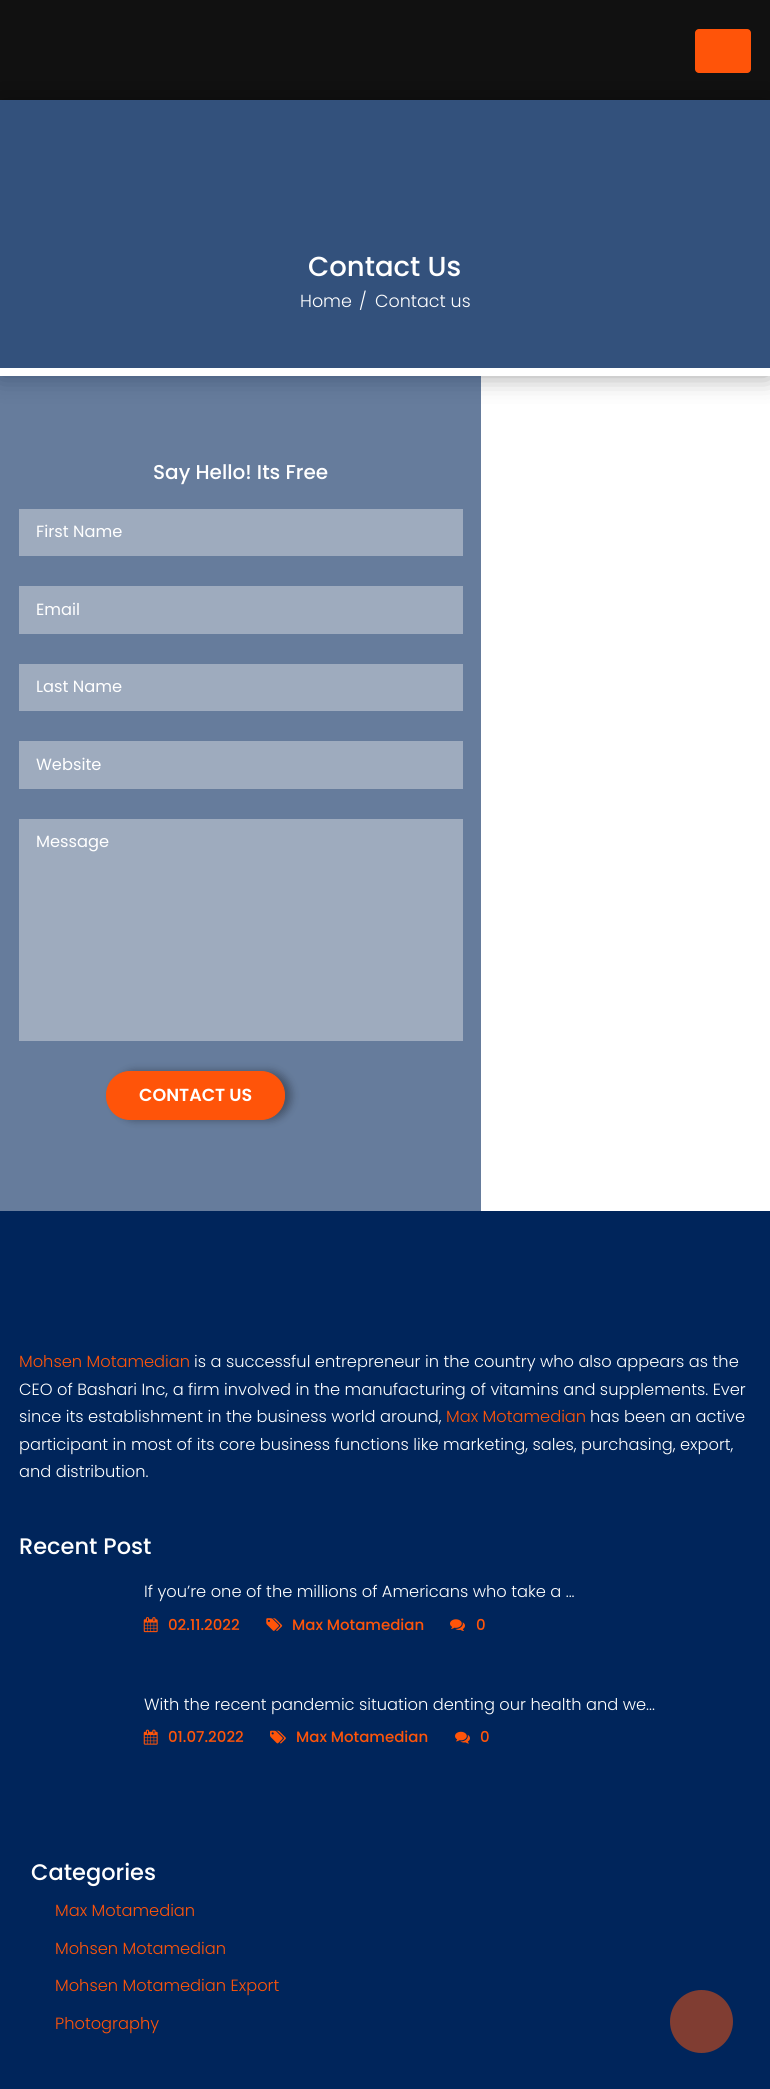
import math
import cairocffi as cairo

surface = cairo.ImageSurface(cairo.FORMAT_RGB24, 770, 2089)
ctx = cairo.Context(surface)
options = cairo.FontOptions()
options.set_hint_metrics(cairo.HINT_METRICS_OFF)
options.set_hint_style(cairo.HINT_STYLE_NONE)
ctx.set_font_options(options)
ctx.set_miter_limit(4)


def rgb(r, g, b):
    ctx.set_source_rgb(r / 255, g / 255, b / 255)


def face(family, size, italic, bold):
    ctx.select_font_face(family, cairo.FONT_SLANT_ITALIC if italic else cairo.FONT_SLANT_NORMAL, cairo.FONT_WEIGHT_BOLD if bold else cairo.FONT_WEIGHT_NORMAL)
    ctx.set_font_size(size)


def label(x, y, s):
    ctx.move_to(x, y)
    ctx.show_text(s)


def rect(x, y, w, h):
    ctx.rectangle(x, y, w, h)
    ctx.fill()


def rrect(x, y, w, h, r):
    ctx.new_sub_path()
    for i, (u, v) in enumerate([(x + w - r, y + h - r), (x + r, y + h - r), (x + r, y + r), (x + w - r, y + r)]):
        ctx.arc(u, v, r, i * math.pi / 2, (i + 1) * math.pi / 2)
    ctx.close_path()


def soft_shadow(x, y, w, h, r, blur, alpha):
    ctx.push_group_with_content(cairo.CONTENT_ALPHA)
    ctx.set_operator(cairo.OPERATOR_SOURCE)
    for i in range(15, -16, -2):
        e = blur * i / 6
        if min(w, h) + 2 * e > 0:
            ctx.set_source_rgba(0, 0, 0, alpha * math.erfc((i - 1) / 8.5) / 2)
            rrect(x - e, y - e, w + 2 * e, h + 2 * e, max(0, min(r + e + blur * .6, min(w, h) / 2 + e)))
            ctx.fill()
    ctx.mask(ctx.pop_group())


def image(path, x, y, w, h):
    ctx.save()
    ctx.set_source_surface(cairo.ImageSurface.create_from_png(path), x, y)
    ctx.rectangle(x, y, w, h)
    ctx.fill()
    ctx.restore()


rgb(255, 255, 255)
ctx.paint()
rgb(17, 17, 17)
rect(0, 0, 770, 100)
ctx.save()
ctx.set_fill_rule(cairo.FILL_RULE_EVEN_ODD)
ctx.new_path()
ctx.move_to(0, 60)
ctx.line_to(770, 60)
ctx.line_to(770, 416)
ctx.line_to(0, 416)
ctx.close_path()
ctx.move_to(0, 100)
ctx.line_to(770, 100)
ctx.line_to(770, 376)
ctx.line_to(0, 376)
ctx.close_path()
ctx.clip()
rgb(0, 0, 0)
soft_shadow(0, 100, 770, 276, 0, 13, 0.38)
ctx.restore()
rgb(255, 84, 9)
rrect(695, 29, 56, 44, 4)
ctx.fill()
rgb(51, 81, 124)
rect(0, 100, 770, 268)
face('Poppins Medium', 27.5, 0, 0)
rgb(255, 255, 255)
label(308, 276, 'Contact Us')
face('Poppins Light', 17.5, 0, 0)
label(300, 307, 'Home')
label(359, 307, '/')
label(375, 307, 'Contact us')
ctx.set_source_rgba(0, 0.145, 0.357, 0.6)
rect(0, 376, 481, 835)
face('Poppins Medium', 20, 0, 0)
rgb(255, 255, 255)
label(153, 479, 'Say Hello! Its Free')
rgb(158, 171, 190)
rect(19, 509, 444, 47)
face('Poppins', 16.25, 0, 0)
rgb(255, 255, 255)
label(36, 537, 'First Name')
rgb(158, 171, 190)
rect(19, 586, 444, 48)
rgb(255, 255, 255)
label(36, 615, 'Email')
rgb(158, 171, 190)
rect(19, 664, 444, 47)
rgb(255, 255, 255)
label(36, 692, 'Last Name')
rgb(158, 171, 190)
rect(19, 741, 444, 48)
rgb(255, 255, 255)
label(36, 770, 'Website')
rgb(158, 171, 190)
rect(19, 819, 444, 222)
rgb(255, 255, 255)
label(36, 847, 'Message')
rgb(0, 0, 0)
soft_shadow(113, 1071, 178, 49, 24, 4.5, 0.34)
rgb(255, 84, 9)
rrect(106.5, 1071.5, 178, 48, 23.5)
ctx.fill_preserve()
ctx.set_line_width(1)
ctx.stroke()
face('Poppins SemiBold', 17.5, 0, 0)
rgb(255, 255, 255)
label(139, 1101, 'CONTACT US')
rgb(0, 37, 91)
rect(0, 1211, 770, 878)
face('Poppins Light', 16.25, 0, 0)
rgb(255, 84, 9)
label(19, 1367, 'Mohsen Motamedian')
rgb(255, 255, 255)
label(194, 1367, 'is a successful entrepreneur in the country who also appears as the')
label(19, 1395, 'CEO of Bashari Inc, a firm involved in the manufacturing of vitamins and supplements. Ever')
label(19, 1422, 'since its establishment in the business world around,')
rgb(255, 84, 9)
label(446, 1422, 'Max Motamedian')
rgb(255, 255, 255)
label(590, 1422, 'has been an active')
label(19, 1450, 'participant in most of its core business functions like marketing, sales, purchasing, export,')
label(19, 1477, 'and distribution.')
face('Poppins Medium', 22.5, 0, 0)
label(19, 1554, 'Recent Post')
face('Poppins Light', 16.25, 0, 0)
label(144, 1597, 'If you’re one of the millions of Americans who take a ...')
image('image0.png', 143, 1617, 15, 16)
face('Poppins Medium', 15, 0, 0)
rgb(255, 84, 9)
label(168, 1630, '02.11.2022')
image('image1.png', 266, 1618, 17, 13)
label(292, 1630, 'Max Motamedian')
image('image2.png', 450, 1619, 15, 12)
label(476, 1630, '0')
face('Poppins Light', 16.25, 0, 0)
rgb(255, 255, 255)
label(144, 1710, 'With the recent pandemic situation denting our health and we...')
image('image3.png', 143, 1729, 15, 16)
face('Poppins Medium', 15, 0, 0)
rgb(255, 84, 9)
label(168, 1742, '01.07.2022')
image('image4.png', 270, 1730, 16, 14)
label(296, 1742, 'Max Motamedian')
image('image5.png', 455, 1731, 15, 13)
label(480, 1742, '0')
face('Poppins Medium', 22.5, 0, 0)
rgb(255, 255, 255)
label(31, 1880, 'Categories')
face('Poppins Light', 16.25, 0, 0)
rgb(255, 84, 9)
label(55, 1916, 'Max Motamedian')
label(55, 1954, 'Mohsen Motamedian')
label(55, 1991, 'Mohsen Motamedian Export')
label(55, 2029, 'Photography')
rgb(128, 61, 50)
ctx.new_path()
ctx.arc(701.5, 2021.5, 30, 0, 2 * math.pi)
ctx.fill_preserve()
ctx.set_line_width(3)
ctx.stroke()
surface.write_to_png('render.png')
